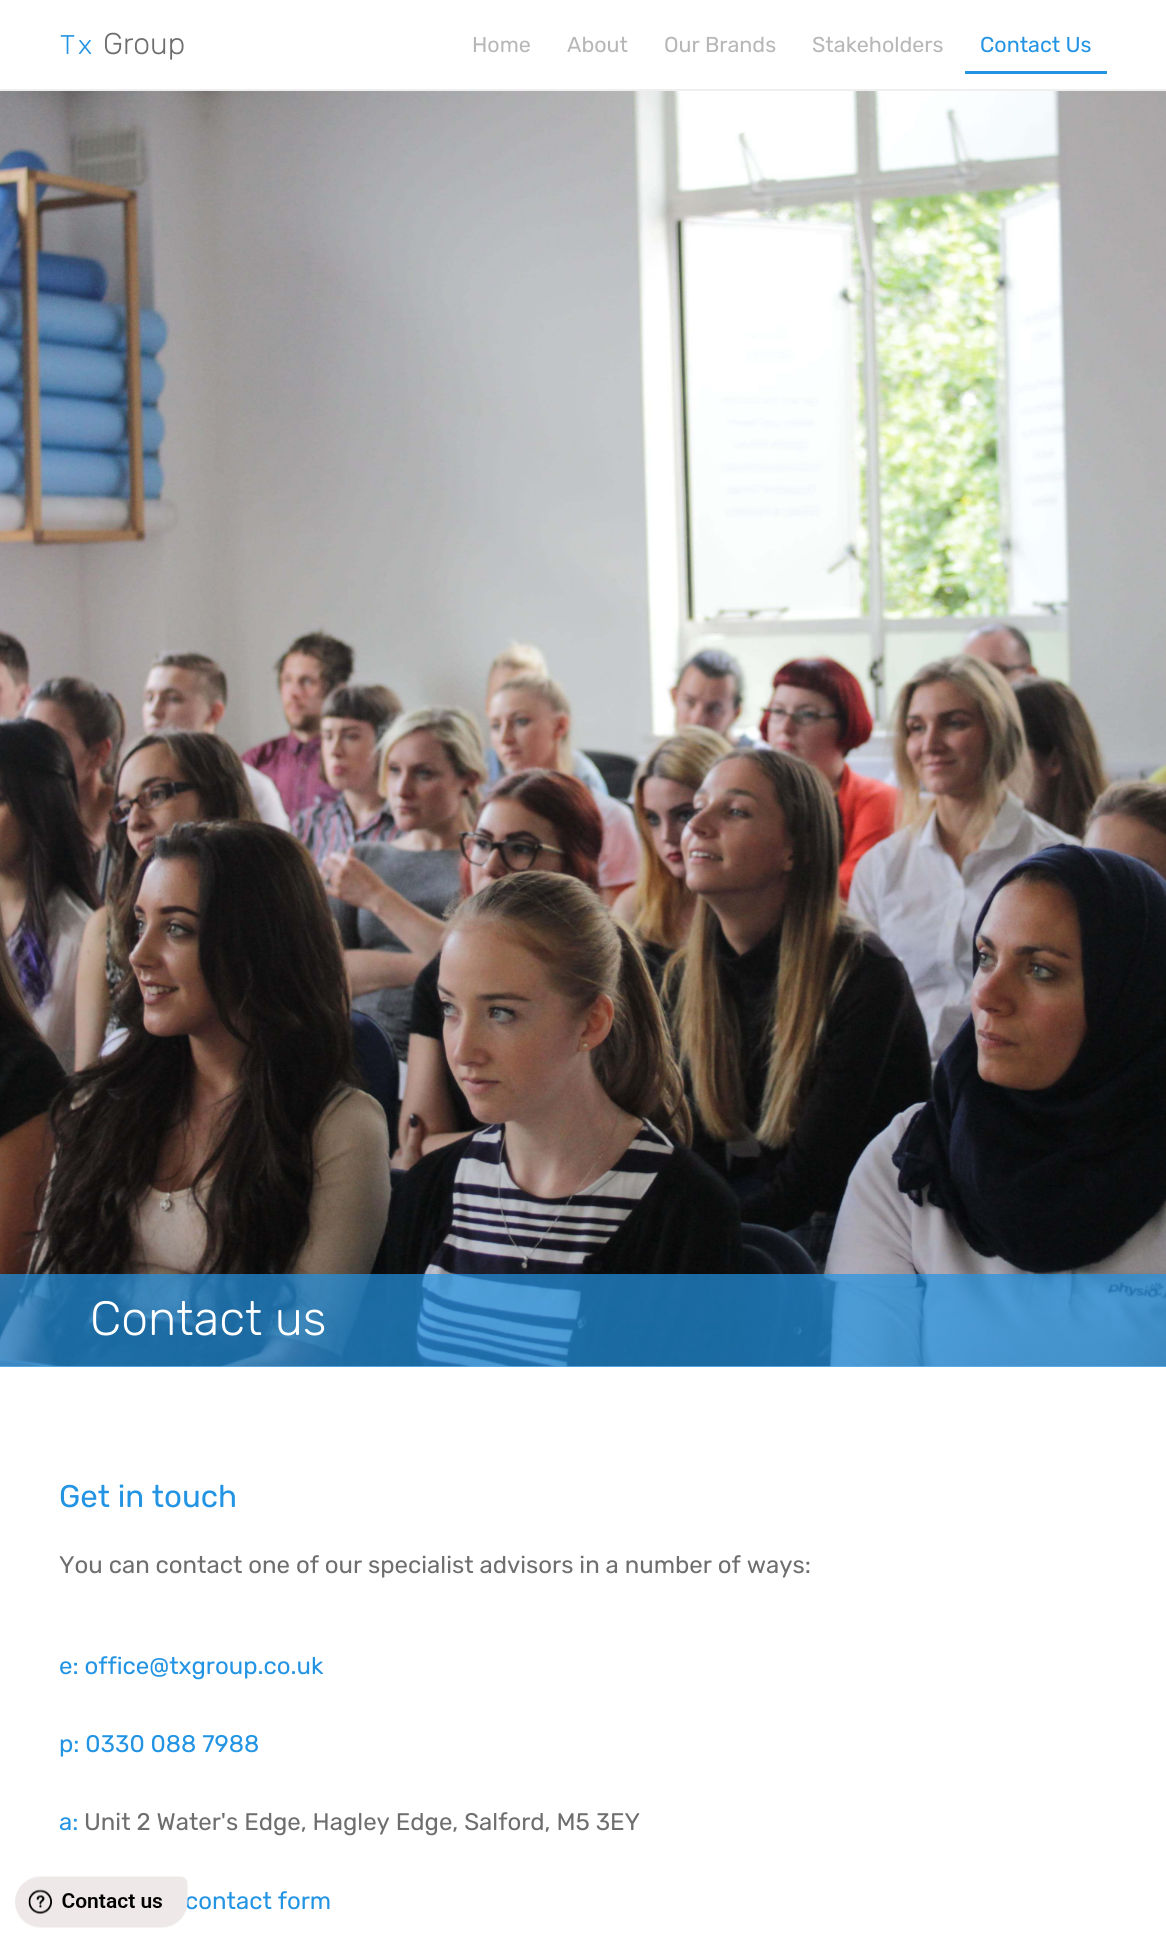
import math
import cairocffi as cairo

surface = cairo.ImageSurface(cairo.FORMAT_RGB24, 1166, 1951)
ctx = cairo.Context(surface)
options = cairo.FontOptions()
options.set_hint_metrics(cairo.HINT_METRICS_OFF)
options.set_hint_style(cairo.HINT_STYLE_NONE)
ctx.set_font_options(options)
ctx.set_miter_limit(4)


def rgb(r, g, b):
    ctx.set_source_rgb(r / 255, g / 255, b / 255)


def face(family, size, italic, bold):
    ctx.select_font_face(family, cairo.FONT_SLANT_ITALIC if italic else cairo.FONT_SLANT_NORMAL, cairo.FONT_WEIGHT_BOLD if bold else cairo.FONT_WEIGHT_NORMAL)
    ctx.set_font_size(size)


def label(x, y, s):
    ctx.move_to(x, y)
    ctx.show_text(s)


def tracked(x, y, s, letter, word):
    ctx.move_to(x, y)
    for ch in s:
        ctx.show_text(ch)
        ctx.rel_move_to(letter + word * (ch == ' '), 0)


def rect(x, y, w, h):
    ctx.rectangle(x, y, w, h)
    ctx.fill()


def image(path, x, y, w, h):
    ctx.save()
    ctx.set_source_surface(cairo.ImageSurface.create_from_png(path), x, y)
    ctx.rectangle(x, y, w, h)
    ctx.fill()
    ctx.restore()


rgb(255, 255, 255)
ctx.paint()
face('Rubik Light', 27, 0, 0)
rgb(35, 148, 227)
tracked(60, 54, 'Tx', 3, 0)
face('Rubik Light', 30, 0, 0)
rgb(110, 110, 110)
label(103, 54, 'Group')
face('Rubik', 21.5, 0, 0)
rgb(183, 183, 183)
label(472, 52, 'Home')
label(567, 52, 'About')
label(664, 52, 'Our Brands')
label(812, 52, 'Stakeholders')
rgb(35, 148, 227)
label(980, 52, 'Contact Us')
rect(965, 71, 142, 3)
rgb(239, 239, 239)
rect(0, 89, 1166, 2)
image('image0.png', 0, 91, 1166, 1276)
ctx.set_source_rgba(0.137, 0.58, 0.89, 0.7)
rect(0, 1274, 1166, 93)
face('Rubik Light', 48, 0, 0)
rgb(255, 255, 255)
label(90, 1335, 'Contact us')
face('Rubik', 31.25, 0, 0)
rgb(35, 148, 227)
label(59, 1507, 'Get in touch')
face('Rubik', 24, 0, 0)
rgb(110, 110, 110)
label(59, 1573, 'You can contact one of our specialist advisors in a number of ways:')
rgb(35, 148, 227)
label(59, 1674, 'e: office@txgroup.co.uk')
label(59, 1752, 'p: 0330 088 7988')
label(59, 1830, 'a:')
rgb(110, 110, 110)
label(84, 1830, 'Unit 2 Water\'s Edge, Hagley Edge, Salford, M5 3EY')
rgb(35, 148, 227)
label(185, 1909, 'contact form')
image('image1.png', 15, 1876, 173, 52)
surface.write_to_png('render.png')
